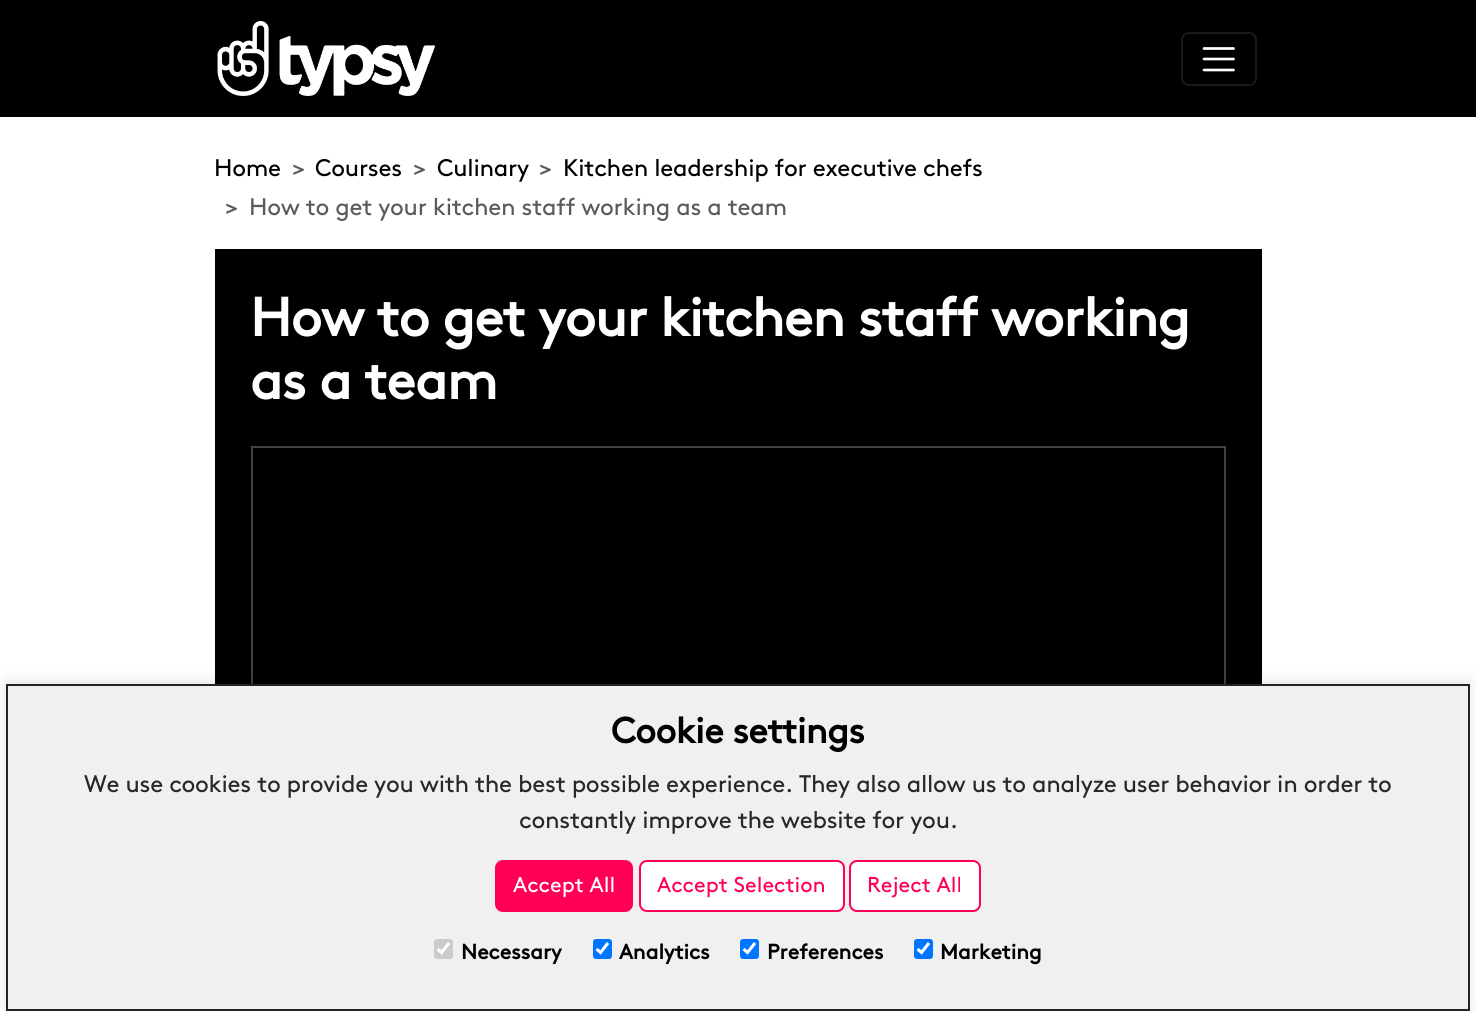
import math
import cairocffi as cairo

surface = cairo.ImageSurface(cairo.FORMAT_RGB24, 1476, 1011)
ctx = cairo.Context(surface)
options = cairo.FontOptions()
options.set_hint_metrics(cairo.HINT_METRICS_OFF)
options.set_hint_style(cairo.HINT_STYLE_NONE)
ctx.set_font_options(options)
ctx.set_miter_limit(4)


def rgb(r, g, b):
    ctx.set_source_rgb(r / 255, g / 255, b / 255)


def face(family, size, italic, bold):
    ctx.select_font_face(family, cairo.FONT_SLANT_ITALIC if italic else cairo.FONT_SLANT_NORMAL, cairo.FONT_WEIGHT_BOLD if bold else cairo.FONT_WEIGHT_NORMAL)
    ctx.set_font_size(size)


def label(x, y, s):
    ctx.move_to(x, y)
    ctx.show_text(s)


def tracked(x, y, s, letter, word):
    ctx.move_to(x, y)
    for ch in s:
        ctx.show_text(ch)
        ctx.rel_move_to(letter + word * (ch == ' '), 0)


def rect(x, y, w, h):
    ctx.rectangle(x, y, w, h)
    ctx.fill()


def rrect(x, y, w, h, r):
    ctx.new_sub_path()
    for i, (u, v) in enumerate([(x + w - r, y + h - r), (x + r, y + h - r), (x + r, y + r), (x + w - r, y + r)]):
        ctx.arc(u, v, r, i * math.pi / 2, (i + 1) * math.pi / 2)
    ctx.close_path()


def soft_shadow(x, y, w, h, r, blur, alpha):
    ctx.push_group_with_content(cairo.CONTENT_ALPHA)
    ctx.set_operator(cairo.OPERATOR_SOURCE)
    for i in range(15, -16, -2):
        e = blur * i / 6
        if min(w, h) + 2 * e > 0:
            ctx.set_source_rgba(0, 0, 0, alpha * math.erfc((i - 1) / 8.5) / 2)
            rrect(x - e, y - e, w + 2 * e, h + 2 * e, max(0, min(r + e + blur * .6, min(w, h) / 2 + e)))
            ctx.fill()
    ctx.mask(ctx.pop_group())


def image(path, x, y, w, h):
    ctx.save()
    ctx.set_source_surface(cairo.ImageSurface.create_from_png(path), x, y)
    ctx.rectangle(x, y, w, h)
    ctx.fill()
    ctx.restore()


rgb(255, 255, 255)
ctx.paint()
rgb(0, 0, 0)
rect(0, 0, 1476, 117)
image('image0.png', 217, 21, 218, 75)
rrect(1182, 33, 74, 52, 7)
rgb(26, 26, 26)
ctx.stroke()
ctx.new_path()
ctx.move_to(1204, 48.5)
ctx.line_to(1233.5, 48.5)
ctx.move_to(1204, 59)
ctx.line_to(1233.5, 59)
ctx.move_to(1204, 70)
ctx.line_to(1233.5, 70)
rgb(255, 255, 255)
ctx.set_line_width(2.7)
ctx.set_line_cap(cairo.LINE_CAP_ROUND)
ctx.stroke()
face('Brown', 24, 0, 0)
rgb(0, 0, 0)
tracked(214, 176, 'Home', -0.3, 0)
rgb(89, 92, 95)
tracked(292, 176, '>', -0.3, 0)
rgb(0, 0, 0)
tracked(315, 176, 'Courses', -0.3, 0)
rgb(89, 92, 95)
tracked(413, 176, '>', -0.3, 0)
rgb(0, 0, 0)
tracked(437, 176, 'Culinary', -0.3, 0)
rgb(89, 92, 95)
tracked(539, 176, '>', -0.3, 0)
rgb(0, 0, 0)
tracked(563, 176, 'Kitchen leadership for executive chefs', -0.3, 0)
rgb(89, 92, 95)
tracked(225, 215, '>', -0.3, 0)
tracked(249, 215, 'How to get your kitchen staff working as a team', -0.3, 0)
rgb(0, 0, 0)
rect(215, 249, 1047, 435)
face('Brown', 54, 0, 1)
rgb(255, 255, 255)
tracked(250, 336, 'How to get your kitchen staff working', -0.9, 0)
tracked(250, 399, 'as a team', -0.9, 0)
ctx.rectangle(252, 447, 973, 238)
rgb(62, 67, 71)
ctx.set_line_width(2)
ctx.set_line_cap(cairo.LINE_CAP_BUTT)
ctx.stroke()
rgb(0, 0, 0)
soft_shadow(6, 681, 1464, 327, 0, 7.5, 0.1)
rgb(240, 240, 240)
ctx.rectangle(7, 685, 1462, 325)
ctx.fill_preserve()
rgb(33, 37, 41)
ctx.stroke()
face('Brown', 36, 0, 1)
rgb(0, 0, 0)
tracked(611, 743, 'Cookie settings', -0.5, 0)
face('Brown', 24, 0, 0)
rgb(40, 40, 40)
tracked(84, 792, 'We use cookies to provide you with the best possible experience. They also allow us to analyze user behavior in order to', -0.3, 0)
tracked(519, 828, 'constantly improve the website for you.', -0.3, 0)
rgb(255, 0, 85)
rrect(496, 861, 136, 50, 7)
ctx.fill_preserve()
ctx.stroke()
face('Brown', 21.5, 0, 0)
rgb(255, 255, 255)
label(513, 892, 'Accept All')
rrect(640, 861, 204, 50, 7)
ctx.fill_preserve()
rgb(255, 0, 85)
ctx.stroke()
label(657, 892, 'Accept Selection')
rgb(255, 255, 255)
rrect(850, 861, 130, 50, 7)
ctx.fill_preserve()
rgb(255, 0, 85)
ctx.stroke()
label(867, 892, 'Reject All')
rgb(203, 203, 203)
rrect(434, 939, 19, 20, 3)
ctx.fill()
ctx.new_path()
ctx.move_to(437.5, 949)
ctx.line_to(441.5, 952.5)
ctx.line_to(449, 943)
rgb(255, 255, 255)
ctx.set_line_width(3.1)
ctx.stroke()
face('Brown', 21, 0, 1)
rgb(0, 0, 0)
label(461, 959, 'Necessary')
rgb(0, 117, 255)
rrect(593, 939, 19, 20, 3)
ctx.fill()
ctx.new_path()
ctx.move_to(596.5, 949)
ctx.line_to(600.5, 952.5)
ctx.line_to(608, 943)
rgb(255, 255, 255)
ctx.stroke()
rgb(0, 0, 0)
label(619, 959, 'Analytics')
rgb(0, 117, 255)
rrect(740, 939, 19, 20, 3)
ctx.fill()
ctx.new_path()
ctx.move_to(743.5, 949)
ctx.line_to(747.5, 952.5)
ctx.line_to(755, 943)
rgb(255, 255, 255)
ctx.stroke()
rgb(0, 0, 0)
label(767, 959, 'Preferences')
rgb(0, 117, 255)
rrect(914, 939, 19, 20, 3)
ctx.fill()
ctx.new_path()
ctx.move_to(917.5, 949)
ctx.line_to(921.5, 952.5)
ctx.line_to(929, 943)
rgb(255, 255, 255)
ctx.stroke()
rgb(0, 0, 0)
label(940, 959, 'Marketing')
surface.write_to_png('render.png')
